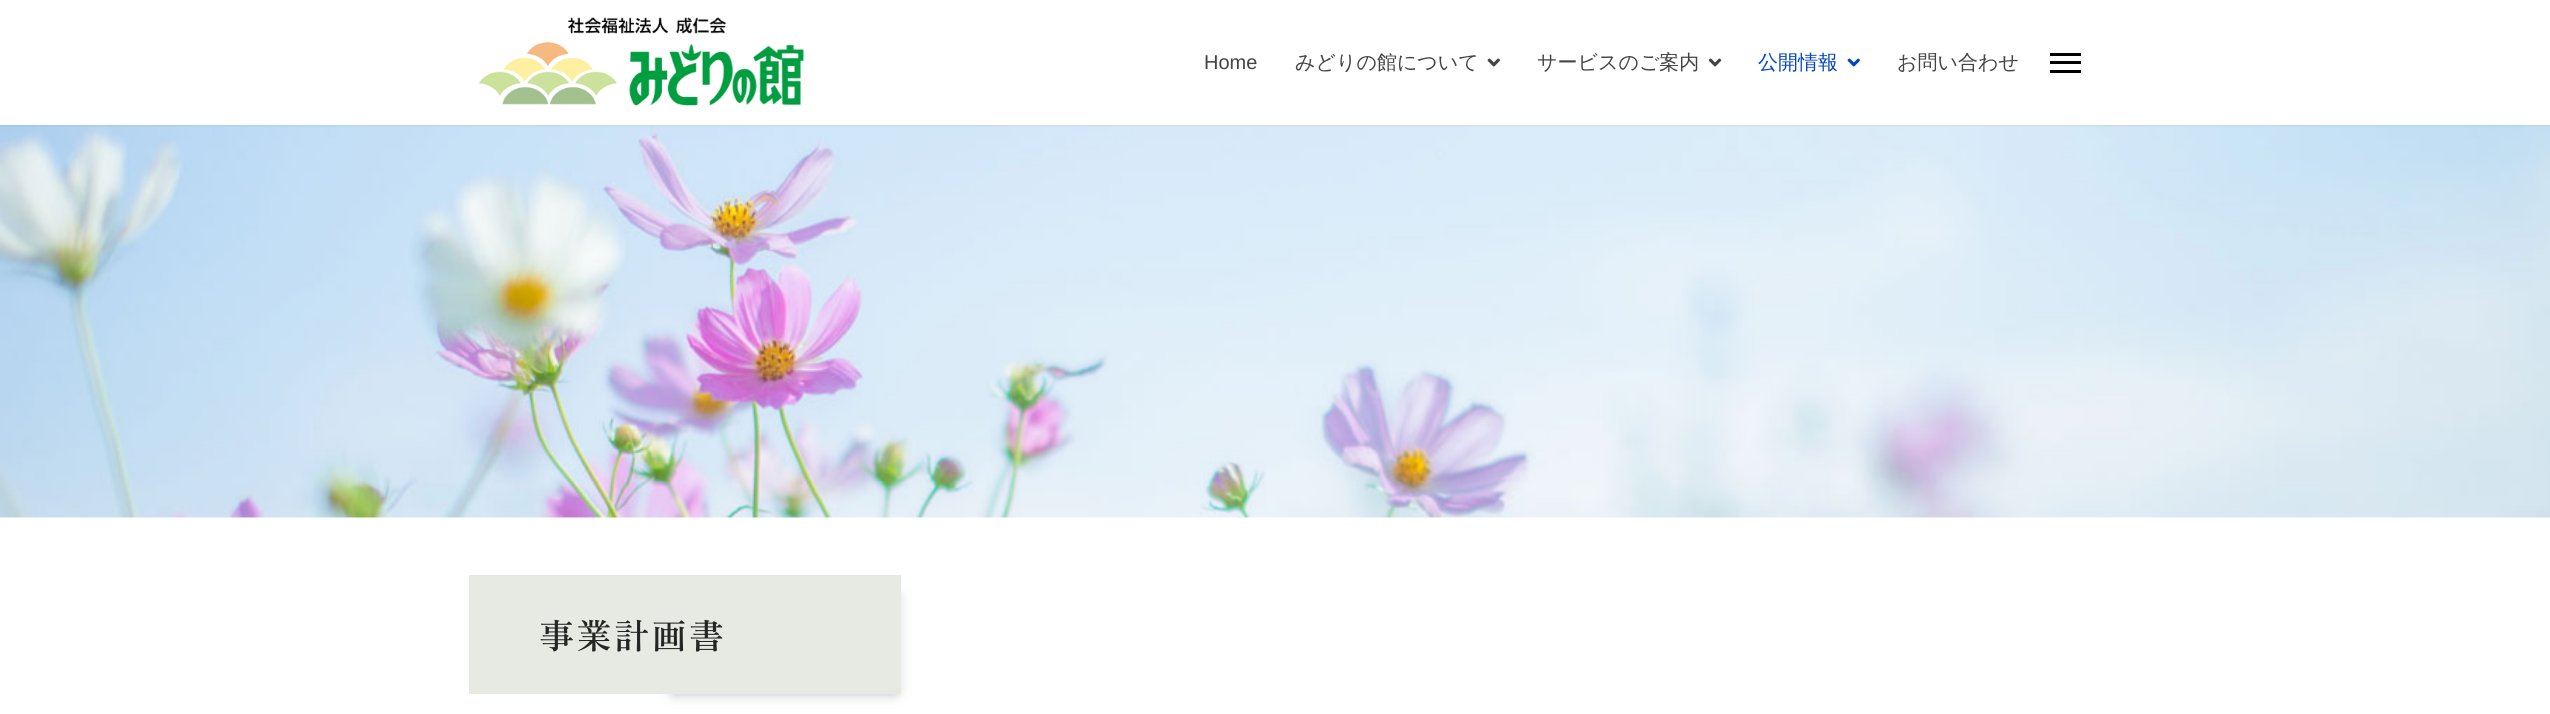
import math
import cairocffi as cairo

surface = cairo.ImageSurface(cairo.FORMAT_RGB24, 2550, 714)
ctx = cairo.Context(surface)
options = cairo.FontOptions()
options.set_hint_metrics(cairo.HINT_METRICS_OFF)
options.set_hint_style(cairo.HINT_STYLE_NONE)
ctx.set_font_options(options)
ctx.set_miter_limit(4)


def rgb(r, g, b):
    ctx.set_source_rgb(r / 255, g / 255, b / 255)


def face(family, size, italic, bold):
    ctx.select_font_face(family, cairo.FONT_SLANT_ITALIC if italic else cairo.FONT_SLANT_NORMAL, cairo.FONT_WEIGHT_BOLD if bold else cairo.FONT_WEIGHT_NORMAL)
    ctx.set_font_size(size)


def label(x, y, s):
    ctx.move_to(x, y)
    ctx.show_text(s)


def tracked(x, y, s, letter, word):
    ctx.move_to(x, y)
    for ch in s:
        ctx.show_text(ch)
        ctx.rel_move_to(letter + word * (ch == ' '), 0)


def rect(x, y, w, h):
    ctx.rectangle(x, y, w, h)
    ctx.fill()


def rrect(x, y, w, h, r):
    ctx.new_sub_path()
    for i, (u, v) in enumerate([(x + w - r, y + h - r), (x + r, y + h - r), (x + r, y + r), (x + w - r, y + r)]):
        ctx.arc(u, v, r, i * math.pi / 2, (i + 1) * math.pi / 2)
    ctx.close_path()


def soft_shadow(x, y, w, h, r, blur, alpha):
    ctx.push_group_with_content(cairo.CONTENT_ALPHA)
    ctx.set_operator(cairo.OPERATOR_SOURCE)
    for i in range(15, -16, -2):
        e = blur * i / 6
        if min(w, h) + 2 * e > 0:
            ctx.set_source_rgba(0, 0, 0, alpha * math.erfc((i - 1) / 8.5) / 2)
            rrect(x - e, y - e, w + 2 * e, h + 2 * e, max(0, min(r + e + blur * .6, min(w, h) / 2 + e)))
            ctx.fill()
    ctx.mask(ctx.pop_group())


def image(path, x, y, w, h):
    ctx.save()
    ctx.set_source_surface(cairo.ImageSurface.create_from_png(path), x, y)
    ctx.rectangle(x, y, w, h)
    ctx.fill()
    ctx.restore()


rgb(255, 255, 255)
ctx.paint()
image('image4.png', 0, 125, 2550, 393)
ctx.save()
ctx.rectangle(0, 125, 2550, 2)
ctx.clip()
rgb(0, 0, 0)
soft_shadow(0, 0, 2550, 125, 0, 2.5, 0.1)
ctx.restore()
image('image0.png', 479, 17, 325, 89)
face('Liberation Sans', 20, 0, 0)
rgb(69, 67, 67)
label(1204, 69, 'Home')
face('WenQuanYi Zen Hei Medium', 20, 0, 0)
label(1295, 69, 'みどりの館について')
image('image1.png', 1487, 58, 13, 9)
label(1537, 69, 'サービスのご案内')
image('image2.png', 1708, 58, 14, 9)
rgb(3, 69, 191)
label(1758, 69, '公開情報')
image('image3.png', 1847, 58, 13, 9)
rgb(69, 67, 67)
label(1897, 69, 'お問い合わせ')
rgb(0, 0, 0)
rect(2050, 53, 31, 3)
rect(2050, 61, 31, 3)
rect(2050, 70, 31, 3)
rgb(179, 179, 179)
soft_shadow(673, 596, 223, 97, 0, 6.5, 1)
rgb(230, 234, 227)
rect(469, 575, 432, 119)
face('Zen Old Mincho SemiBold', 35, 0, 0)
rgb(37, 37, 37)
tracked(539, 649, '事業計画書', 2.5, 0)
surface.write_to_png('render.png')
